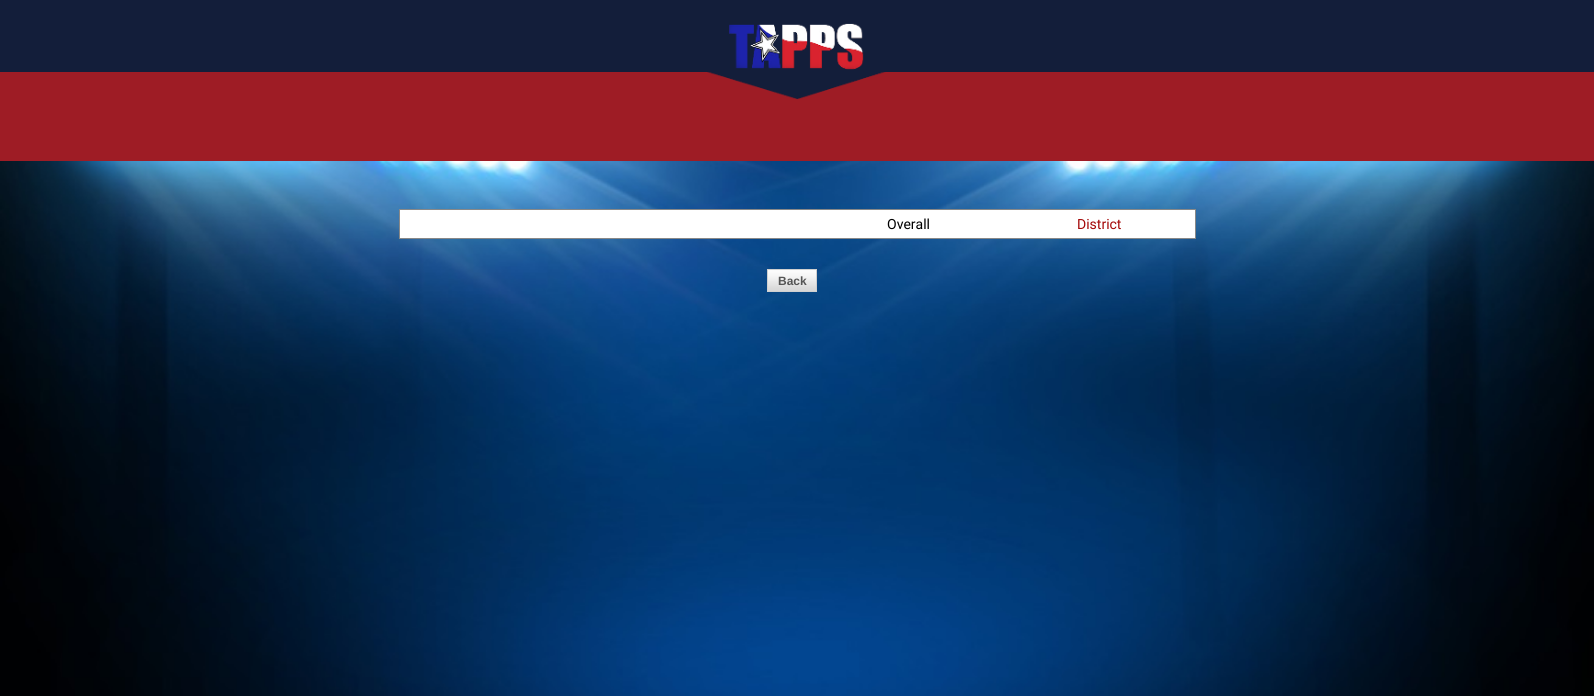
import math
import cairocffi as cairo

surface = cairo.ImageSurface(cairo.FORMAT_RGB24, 1594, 696)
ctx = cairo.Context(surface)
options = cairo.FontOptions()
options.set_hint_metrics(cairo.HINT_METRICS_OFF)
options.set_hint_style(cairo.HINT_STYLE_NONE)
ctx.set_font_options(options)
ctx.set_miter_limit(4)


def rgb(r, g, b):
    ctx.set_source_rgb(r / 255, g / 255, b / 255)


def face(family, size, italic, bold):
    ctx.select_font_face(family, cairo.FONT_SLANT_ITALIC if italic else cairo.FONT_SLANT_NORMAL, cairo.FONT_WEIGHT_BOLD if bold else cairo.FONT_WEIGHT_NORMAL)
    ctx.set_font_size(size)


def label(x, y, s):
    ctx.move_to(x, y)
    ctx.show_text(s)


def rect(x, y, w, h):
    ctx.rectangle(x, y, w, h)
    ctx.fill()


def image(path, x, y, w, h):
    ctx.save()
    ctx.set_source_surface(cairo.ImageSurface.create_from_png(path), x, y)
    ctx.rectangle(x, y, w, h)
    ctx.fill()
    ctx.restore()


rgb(255, 255, 255)
ctx.paint()
image('image0.png', 0, 161, 1594, 535)
rgb(158, 28, 37)
rect(0, 72, 1594, 89)
rgb(19, 30, 58)
rect(0, 0, 1594, 72)
image('image1.png', 707, 23, 179, 77)
rgb(255, 255, 255)
ctx.rectangle(399.5, 209.5, 796, 29)
ctx.fill_preserve()
rgb(136, 136, 136)
ctx.set_line_width(1)
ctx.stroke()
face('Roboto', 14, 0, 0)
rgb(0, 0, 0)
label(887, 229, 'Overall')
rgb(164, 7, 7)
label(1077, 229, 'District')
image('image2.png', 768, 270, 48, 21)
ctx.rectangle(767.5, 269.5, 49, 22)
rgb(208, 208, 208)
ctx.stroke()
face('Liberation Sans', 12, 0, 1)
rgb(85, 85, 85)
label(778, 285, 'Back')
surface.write_to_png('render.png')
